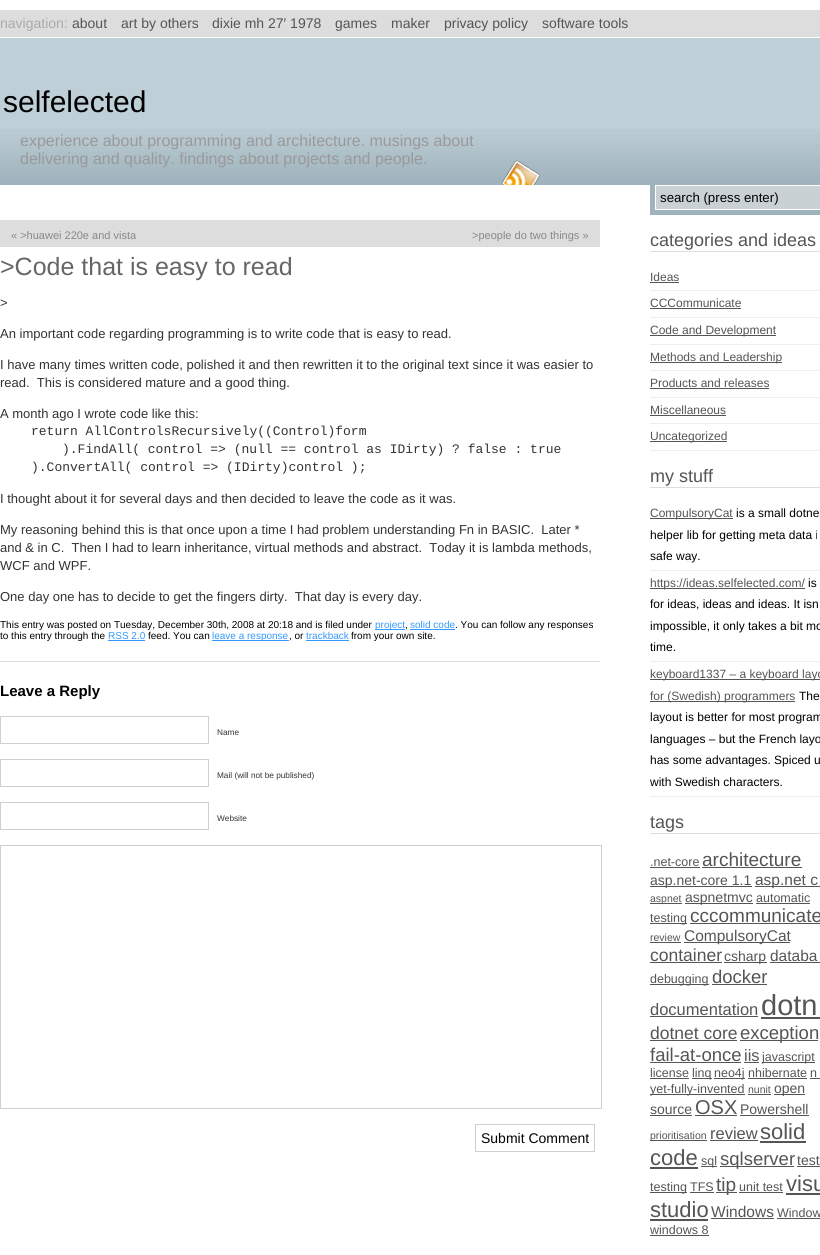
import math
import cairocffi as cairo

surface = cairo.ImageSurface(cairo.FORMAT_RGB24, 820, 1255)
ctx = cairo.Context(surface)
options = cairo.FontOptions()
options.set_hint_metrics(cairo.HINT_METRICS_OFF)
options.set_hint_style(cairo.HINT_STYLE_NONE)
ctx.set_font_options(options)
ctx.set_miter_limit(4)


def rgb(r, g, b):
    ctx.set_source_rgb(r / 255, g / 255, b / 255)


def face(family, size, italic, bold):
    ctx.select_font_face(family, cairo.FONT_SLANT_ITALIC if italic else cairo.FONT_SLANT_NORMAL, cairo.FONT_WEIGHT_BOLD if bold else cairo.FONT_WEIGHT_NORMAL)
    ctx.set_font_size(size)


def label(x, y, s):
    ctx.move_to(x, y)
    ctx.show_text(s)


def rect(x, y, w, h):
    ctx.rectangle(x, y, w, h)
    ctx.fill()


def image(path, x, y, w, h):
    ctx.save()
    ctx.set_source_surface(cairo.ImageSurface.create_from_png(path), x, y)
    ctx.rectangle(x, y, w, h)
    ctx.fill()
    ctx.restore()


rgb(255, 255, 255)
ctx.paint()
rgb(221, 221, 221)
rect(0, 10, 820, 27)
face('Liberation Sans', 14, 0, 0)
rgb(170, 170, 170)
label(0, 28, 'navigation:')
rgb(85, 85, 85)
label(72, 28, 'about')
label(121, 28, 'art by others')
label(212, 28, 'dixie mh 27′ 1978')
label(335, 28, 'games')
label(391, 28, 'maker')
label(444, 28, 'privacy policy')
label(542, 28, 'software tools')
rgb(191, 207, 215)
rect(0, 38, 820, 91)
image('image0.png', 0, 129, 820, 56)
face('Liberation Sans', 30, 0, 0)
rgb(0, 0, 0)
label(3, 112, 'selfelected')
face('Liberation Sans', 16, 0, 0)
rgb(153, 153, 153)
label(20, 146, 'experience about programming and architecture. musings about')
label(20, 164, 'delivering and quality. findings about projects and people.')
image('image1.png', 502, 160, 38, 25)
rgb(221, 221, 221)
rect(0, 220, 600, 27)
face('Liberation Sans', 11, 0, 0)
rgb(136, 136, 136)
label(11, 239, '« >huawei 220e and vista')
label(472, 239, '>people do two things »')
rgb(221, 221, 221)
rect(0, 661, 600, 1)
face('Liberation Sans', 25, 0, 0)
rgb(102, 102, 102)
label(0, 275, '>Code that is easy to read')
face('Liberation Sans', 13, 0, 0)
rgb(51, 51, 51)
label(0, 307, '>')
label(0, 338, 'An important code regarding programming is to write code that is easy to read.')
label(0, 369, 'I have many times written code, polished it and then rewritten it to the original text since it was easier to')
label(0, 387, 'read.  This is considered mature and a good thing.')
label(0, 418, 'A month ago I wrote code like this:')
face('Liberation Mono', 13, 0, 0)
label(31, 435, 'return AllControlsRecursively((Control)form')
label(62, 453, ').FindAll( control => (null == control as IDirty) ? false : true')
label(31, 471, ').ConvertAll( control => (IDirty)control );')
face('Liberation Sans', 13, 0, 0)
label(0, 503, 'I thought about it for several days and then decided to leave the code as it was.')
label(0, 534, 'My reasoning behind this is that once upon a time I had problem understanding Fn in BASIC.  Later *')
label(0, 552, 'and & in C.  Then I had to learn inheritance, virtual methods and abstract.  Today it is lambda methods,')
label(0, 570, 'WCF and WPF.')
label(0, 601, 'One day one has to decide to get the fingers dirty.  That day is every day.')
face('Liberation Sans', 10, 0, 0)
rgb(0, 0, 0)
label(0, 628, 'This entry was posted on Tuesday, December 30th, 2008 at 20:18 and is filed under')
rgb(51, 153, 255)
rect(375, 629, 30, 1)
label(375, 628, 'project')
rgb(0, 0, 0)
label(405, 628, ',')
rgb(51, 153, 255)
label(410, 628, 'solid code')
rect(410, 629, 45, 1)
rgb(0, 0, 0)
label(455, 628, '. You can follow any responses')
label(0, 639, 'to this entry through the')
rgb(51, 153, 255)
label(108, 639, 'RSS 2.0')
rect(108, 640, 37, 1)
rgb(0, 0, 0)
label(148, 639, 'feed. You can')
rgb(51, 153, 255)
rect(212, 640, 77, 1)
label(212, 639, 'leave a response')
rgb(0, 0, 0)
label(289, 639, ', or')
rgb(51, 153, 255)
label(306, 639, 'trackback')
rect(306, 640, 43, 1)
rgb(0, 0, 0)
label(351, 639, 'from your own site.')
face('Liberation Sans', 15, 0, 1)
label(0, 696, 'Leave a Reply')
ctx.rectangle(0.5, 716.5, 208, 27)
rgb(201, 209, 212)
ctx.set_line_width(1)
ctx.stroke()
face('Liberation Sans', 8.25, 0, 0)
rgb(51, 51, 51)
label(217, 735, 'Name')
ctx.rectangle(0.5, 759.5, 208, 27)
rgb(201, 209, 212)
ctx.stroke()
rgb(51, 51, 51)
label(217, 778, 'Mail (will not be published)')
ctx.rectangle(0.5, 802.5, 208, 27)
rgb(201, 209, 212)
ctx.stroke()
rgb(51, 51, 51)
label(217, 821, 'Website')
ctx.rectangle(0.5, 845.5, 601, 263)
rgb(201, 209, 212)
ctx.stroke()
ctx.rectangle(475.5, 1124.5, 119, 27)
ctx.stroke()
face('Liberation Sans', 14, 0, 0)
rgb(0, 0, 0)
label(481, 1143, 'Submit Comment')
rgb(159, 179, 188)
rect(650, 185, 170, 30)
rgb(201, 209, 212)
ctx.rectangle(655.5, 185.5, 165, 24)
ctx.fill_preserve()
rgb(255, 255, 255)
ctx.stroke()
face('Liberation Sans', 13.25, 0, 0)
rgb(0, 0, 0)
label(660, 202, 'search (press enter)')
rgb(221, 221, 221)
rect(650, 251, 170, 1)
face('Liberation Sans', 18, 0, 0)
rgb(85, 85, 85)
label(650, 246, 'categories and ideas')
rgb(238, 238, 238)
rect(650, 290, 170, 1)
face('Liberation Sans', 12, 0, 0)
rgb(85, 85, 85)
label(650, 281, 'Ideas')
rect(650, 282, 29, 1)
rgb(238, 238, 238)
rect(650, 317, 170, 1)
rgb(85, 85, 85)
label(650, 307, 'CCCommunicate')
rect(650, 308, 91, 1)
rgb(238, 238, 238)
rect(650, 344, 170, 1)
rgb(85, 85, 85)
rect(650, 335, 126, 1)
label(650, 334, 'Code and Development')
rgb(238, 238, 238)
rect(650, 370, 170, 1)
rgb(85, 85, 85)
rect(650, 362, 132, 1)
label(650, 361, 'Methods and Leadership')
rgb(238, 238, 238)
rect(650, 397, 170, 1)
rgb(85, 85, 85)
label(650, 387, 'Products and releases')
rect(650, 388, 119, 1)
rgb(238, 238, 238)
rect(650, 423, 170, 1)
rgb(85, 85, 85)
label(650, 414, 'Miscellaneous')
rect(650, 415, 76, 1)
rgb(238, 238, 238)
rect(650, 450, 170, 1)
rgb(85, 85, 85)
rect(650, 441, 77, 1)
label(650, 440, 'Uncategorized')
rgb(221, 221, 221)
rect(650, 487, 170, 1)
face('Liberation Sans', 18, 0, 0)
rgb(85, 85, 85)
label(650, 482, 'my stuff')
rgb(238, 238, 238)
rect(650, 570, 170, 1)
rgb(85, 85, 85)
rect(650, 518, 83, 1)
face('Liberation Sans', 12, 0, 0)
label(650, 517, 'CompulsoryCat')
rgb(0, 0, 0)
label(736, 517, 'is a small dotne')
label(650, 539, 'helper lib for getting meta data i')
label(650, 560, 'safe way.')
rgb(238, 238, 238)
rect(650, 661, 170, 1)
rgb(85, 85, 85)
rect(650, 588, 155, 1)
label(650, 587, 'https://ideas.selfelected.com/')
rgb(0, 0, 0)
label(808, 587, 'is')
label(650, 608, 'for ideas, ideas and ideas. It isn')
label(650, 630, 'impossible, it only takes a bit mo')
label(650, 651, 'time.')
rgb(238, 238, 238)
rect(650, 796, 170, 1)
rgb(85, 85, 85)
rect(650, 679, 170, 1)
label(650, 678, 'keyboard1337 – a keyboard layo')
rect(650, 701, 145, 1)
label(650, 700, 'for (Swedish) programmers')
rgb(0, 0, 0)
label(799, 700, 'The')
label(650, 721, 'layout is better for most program')
label(650, 743, 'languages – but the French layo')
label(650, 764, 'has some advantages. Spiced u')
label(650, 786, 'with Swedish characters.')
rgb(221, 221, 221)
rect(650, 833, 170, 1)
face('Liberation Sans', 18, 0, 0)
rgb(85, 85, 85)
label(650, 828, 'tags')
face('Liberation Sans', 12.5, 0, 0)
label(650, 866, '.net-core')
rect(650, 867, 50, 1)
face('Liberation Sans', 19, 0, 0)
label(702, 866, 'architecture')
rect(702, 867, 100, 1)
rect(650, 886, 102, 1)
face('Liberation Sans', 14, 0, 0)
label(650, 885, 'asp.net-core 1.1')
rect(755, 886, 65, 1)
face('Liberation Sans', 15.5, 0, 0)
label(755, 885, 'asp.net c')
rect(650, 903, 32, 1)
face('Liberation Sans', 10.5, 0, 0)
label(650, 902, 'aspnet')
rect(685, 903, 68, 1)
face('Liberation Sans', 14, 0, 0)
label(685, 902, 'aspnetmvc')
face('Liberation Sans', 12.5, 0, 0)
label(756, 902, 'automatic')
rect(756, 903, 54, 1)
rect(650, 923, 37, 1)
label(650, 922, 'testing')
face('Liberation Sans', 19, 0, 0)
label(690, 922, 'cccommunicate')
rect(690, 923, 130, 1)
face('Liberation Sans', 10.5, 0, 0)
label(650, 941, 'review')
rect(650, 942, 31, 1)
rect(684, 942, 106, 1)
face('Liberation Sans', 15.5, 0, 0)
label(684, 941, 'CompulsoryCat')
face('Liberation Sans', 17.5, 0, 0)
label(650, 961, 'container')
rect(650, 962, 72, 1)
rect(724, 962, 43, 1)
face('Liberation Sans', 14, 0, 0)
label(724, 961, 'csharp')
face('Liberation Sans', 15.5, 0, 0)
label(770, 961, 'databa')
rect(770, 962, 50, 1)
rect(650, 984, 59, 1)
face('Liberation Sans', 12.5, 0, 0)
label(650, 983, 'debugging')
face('Liberation Sans', 18.5, 0, 0)
label(712, 983, 'docker')
rect(712, 984, 55, 1)
face('Liberation Sans', 16.5, 0, 0)
label(650, 1015, 'documentation')
rect(650, 1016, 108, 1)
face('Liberation Sans', 29, 0, 0)
label(761, 1015, 'dotn')
rect(761, 1017, 59, 2)
face('Liberation Sans', 17.5, 0, 0)
label(650, 1039, 'dotnet core')
rect(650, 1040, 87, 1)
rect(740, 1040, 78, 1)
face('Liberation Sans', 18.5, 0, 0)
label(740, 1039, 'exception')
label(650, 1061, 'fail-at-once')
rect(650, 1062, 91, 1)
face('Liberation Sans', 16.5, 0, 0)
label(744, 1061, 'iis')
rect(744, 1062, 15, 1)
rect(762, 1062, 53, 1)
face('Liberation Sans', 12.5, 0, 0)
label(762, 1061, 'javascript')
label(650, 1077, 'license')
rect(650, 1078, 39, 1)
rect(692, 1078, 20, 1)
label(692, 1077, 'linq')
rect(714, 1078, 31, 1)
label(714, 1077, 'neo4j')
label(748, 1077, 'nhibernate')
rect(748, 1078, 59, 1)
label(810, 1077, 'n')
rect(810, 1078, 10, 1)
rect(650, 1094, 95, 1)
label(650, 1093, 'yet-fully-invented')
face('Liberation Sans', 10.5, 0, 0)
label(748, 1093, 'nunit')
rect(748, 1094, 23, 1)
rect(774, 1094, 31, 1)
face('Liberation Sans', 14, 0, 0)
label(774, 1093, 'open')
label(650, 1114, 'source')
rect(650, 1115, 42, 1)
face('Liberation Sans', 20, 0, 0)
label(695, 1114, 'OSX')
rect(695, 1115, 42, 1)
face('Liberation Sans', 14, 0, 0)
label(740, 1114, 'Powershell')
rect(740, 1115, 69, 1)
rect(650, 1140, 57, 1)
face('Liberation Sans', 10.5, 0, 0)
label(650, 1139, 'prioritisation')
face('Liberation Sans', 16.5, 0, 0)
label(710, 1139, 'review')
rect(710, 1140, 48, 1)
face('Liberation Sans', 22, 0, 0)
label(760, 1139, 'solid')
rect(760, 1141, 46, 2)
label(650, 1165, 'code')
rect(650, 1167, 48, 2)
rect(701, 1166, 16, 1)
face('Liberation Sans', 12.5, 0, 0)
label(701, 1165, 'sql')
rect(720, 1166, 74, 1)
face('Liberation Sans', 18.5, 0, 0)
label(720, 1165, 'sqlserver')
face('Liberation Sans', 14, 0, 0)
label(797, 1165, 'test')
rect(797, 1166, 23, 1)
rect(650, 1192, 37, 1)
face('Liberation Sans', 12.5, 0, 0)
label(650, 1191, 'testing')
label(690, 1191, 'TFS')
rect(690, 1192, 24, 1)
rect(716, 1192, 21, 1)
face('Liberation Sans', 19, 0, 0)
label(716, 1191, 'tip')
face('Liberation Sans', 12.5, 0, 0)
label(739, 1191, 'unit test')
rect(739, 1192, 44, 1)
face('Liberation Sans', 22, 0, 0)
label(786, 1191, 'visu')
rect(786, 1193, 34, 2)
label(650, 1217, 'studio')
rect(650, 1219, 58, 2)
face('Liberation Sans', 15.5, 0, 0)
label(711, 1217, 'Windows')
rect(711, 1218, 63, 1)
face('Liberation Sans', 12.5, 0, 0)
label(777, 1217, 'Window')
rect(777, 1218, 43, 1)
label(650, 1234, 'windows 8')
rect(650, 1235, 59, 1)
surface.write_to_png('render.png')
